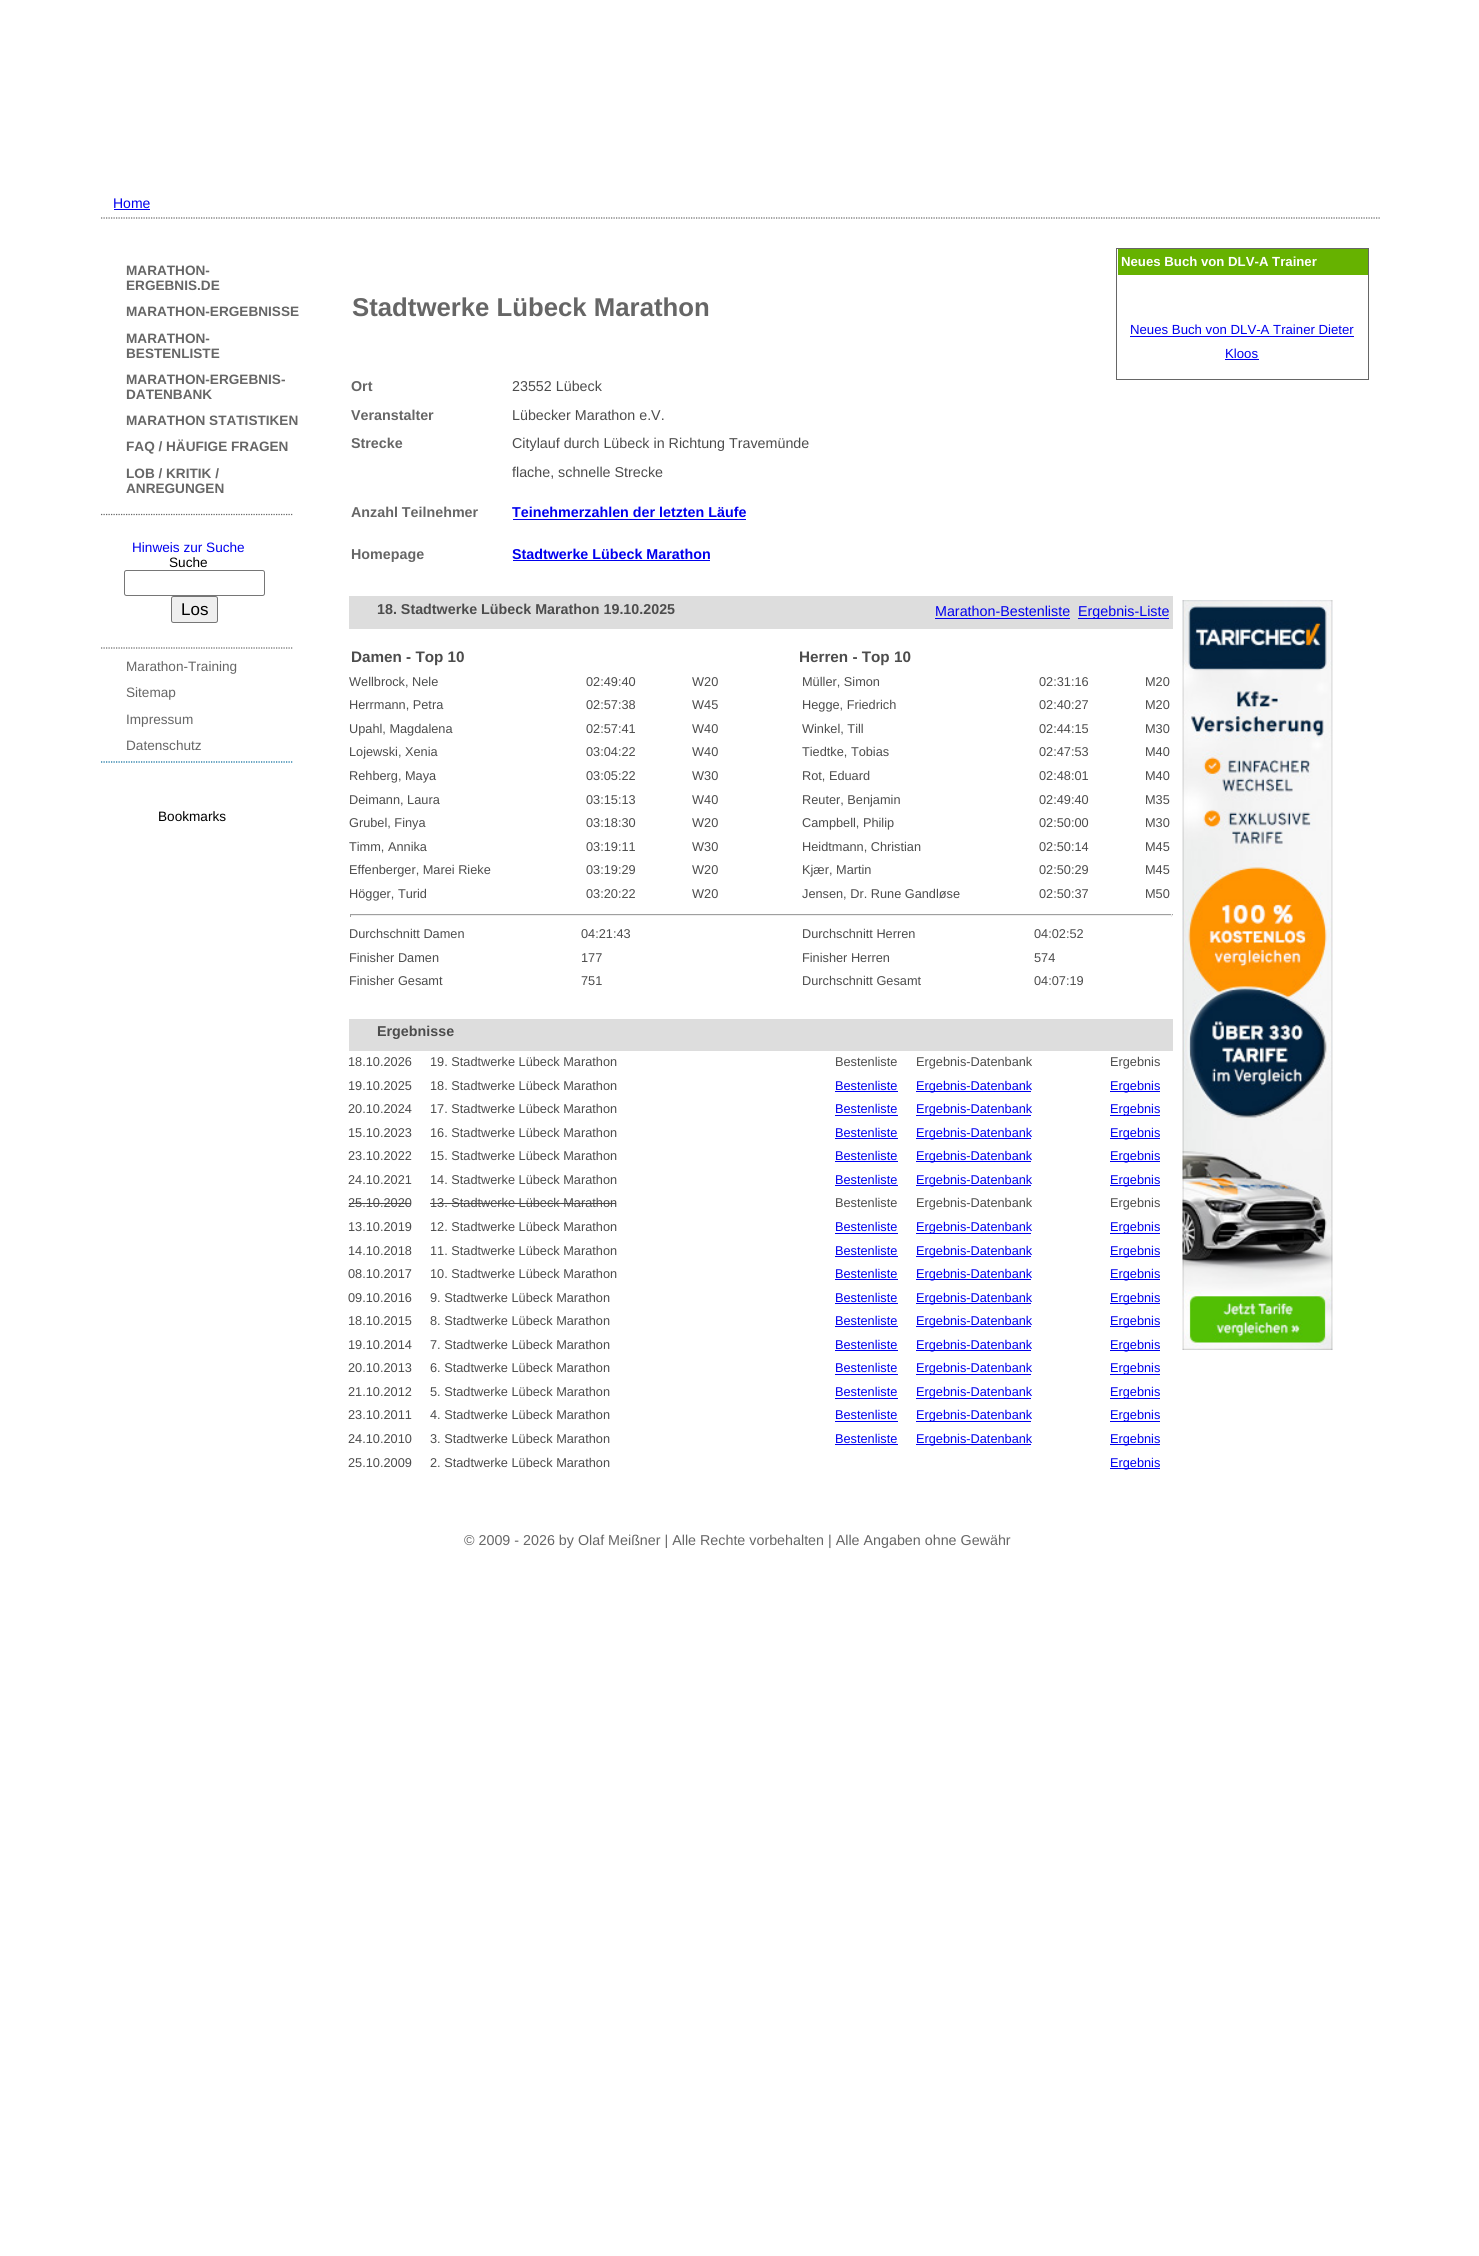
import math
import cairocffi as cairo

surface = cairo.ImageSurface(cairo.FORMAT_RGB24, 1479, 2256)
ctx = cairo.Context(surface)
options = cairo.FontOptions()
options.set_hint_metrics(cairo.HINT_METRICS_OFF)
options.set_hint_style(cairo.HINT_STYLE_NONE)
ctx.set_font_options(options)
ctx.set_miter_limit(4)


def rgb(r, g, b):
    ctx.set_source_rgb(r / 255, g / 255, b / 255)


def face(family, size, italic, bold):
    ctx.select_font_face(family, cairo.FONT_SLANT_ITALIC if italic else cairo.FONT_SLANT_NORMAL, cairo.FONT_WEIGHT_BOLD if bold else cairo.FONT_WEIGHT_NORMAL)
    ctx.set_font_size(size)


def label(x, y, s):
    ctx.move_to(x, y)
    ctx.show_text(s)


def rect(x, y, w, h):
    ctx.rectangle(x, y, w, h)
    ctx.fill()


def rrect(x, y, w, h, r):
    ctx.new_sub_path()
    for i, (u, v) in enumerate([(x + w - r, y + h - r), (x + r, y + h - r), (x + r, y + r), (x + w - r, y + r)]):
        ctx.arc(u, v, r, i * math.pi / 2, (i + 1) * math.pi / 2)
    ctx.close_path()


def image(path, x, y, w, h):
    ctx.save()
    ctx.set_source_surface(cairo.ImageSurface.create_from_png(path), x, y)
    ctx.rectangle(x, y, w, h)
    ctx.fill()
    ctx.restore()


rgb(255, 255, 255)
ctx.paint()
ctx.new_path()
ctx.move_to(101, 218)
ctx.line_to(1380, 218)
rgb(102, 102, 102)
ctx.set_line_width(1.2)
ctx.set_dash([1.25, 1.25])
ctx.stroke()
face('Liberation Sans', 14, 0, 0)
rgb(0, 0, 238)
label(113, 208, 'Home')
rect(114, 209, 36, 1)
face('Liberation Sans', 13.6, 0, 1)
rgb(102, 102, 102)
label(126, 275, 'MARATHON-')
label(126, 290, 'ERGEBNIS.DE')
label(126, 316, 'MARATHON-ERGEBNISSE')
label(126, 343, 'MARATHON-')
label(126, 358, 'BESTENLISTE')
label(126, 384, 'MARATHON-ERGEBNIS-')
label(126, 399, 'DATENBANK')
label(126, 425, 'MARATHON STATISTIKEN')
label(126, 451, 'FAQ / HÄUFIGE FRAGEN')
label(126, 478, 'LOB / KRITIK /')
label(126, 493, 'ANREGUNGEN')
ctx.new_path()
ctx.move_to(101, 514.5)
ctx.line_to(292.5, 514.5)
ctx.stroke()
ctx.new_path()
ctx.move_to(101, 648)
ctx.line_to(292.5, 648)
ctx.stroke()
face('Liberation Sans', 13.6, 0, 0)
rgb(0, 0, 238)
label(132, 552, 'Hinweis zur Suche')
rgb(0, 0, 0)
label(169, 567, 'Suche')
rrect(124.5, 570.5, 140, 25, 2)
rgb(118, 118, 118)
ctx.set_line_width(1)
ctx.set_dash([])
ctx.stroke()
rgb(239, 239, 239)
rrect(171.5, 596.5, 46, 26, 2)
ctx.fill_preserve()
rgb(118, 118, 118)
ctx.stroke()
face('Liberation Sans', 17, 0, 0)
rgb(0, 0, 0)
label(181, 615, 'Los')
ctx.new_path()
ctx.move_to(101, 762)
ctx.line_to(292.5, 762)
rgb(0, 102, 153)
ctx.set_line_width(1.2)
ctx.set_dash([1.25, 1.25])
ctx.stroke()
face('Liberation Sans', 13.6, 0, 0)
rgb(102, 102, 102)
label(126, 671, 'Marathon-Training')
label(126, 697, 'Sitemap')
label(126, 724, 'Impressum')
label(126, 750, 'Datenschutz')
rgb(0, 0, 0)
label(158, 821, 'Bookmarks')
face('Liberation Sans', 25.75, 0, 1)
rgb(102, 102, 102)
label(352, 316, 'Stadtwerke Lübeck Marathon')
ctx.rectangle(1116.5, 248.5, 252, 131)
ctx.set_line_width(1)
ctx.set_dash([])
ctx.stroke()
rgb(102, 178, 0)
rect(1118, 249, 250, 26)
face('Liberation Sans', 13.2, 0, 1)
rgb(255, 255, 255)
label(1121, 266, 'Neues Buch von DLV-A Trainer')
face('Liberation Sans', 13.2, 0, 0)
rgb(0, 0, 238)
label(1130, 334, 'Neues Buch von DLV-A Trainer Dieter')
rect(1130, 336, 224, 1)
label(1225, 358, 'Kloos')
rect(1225, 359, 34, 1)
face('Liberation Sans', 14.3, 0, 1)
rgb(102, 102, 102)
label(351, 391, 'Ort')
face('Liberation Sans', 14.3, 0, 0)
rgb(76, 76, 76)
label(512, 391, '23552 Lübeck')
face('Liberation Sans', 14.3, 0, 1)
rgb(102, 102, 102)
label(351, 420, 'Veranstalter')
face('Liberation Sans', 14.3, 0, 0)
rgb(76, 76, 76)
label(512, 420, 'Lübecker Marathon e.V.')
face('Liberation Sans', 14.3, 0, 1)
rgb(102, 102, 102)
label(351, 448, 'Strecke')
face('Liberation Sans', 14.3, 0, 0)
rgb(76, 76, 76)
label(512, 448, 'Citylauf durch Lübeck in Richtung Travemünde')
label(512, 477, 'flache, schnelle Strecke')
face('Liberation Sans', 14.3, 0, 1)
rgb(102, 102, 102)
label(351, 517, 'Anzahl Teilnehmer')
rgb(0, 0, 238)
label(512, 517, 'Teinehmerzahlen der letzten Läufe')
rect(513, 519, 233, 1)
rgb(102, 102, 102)
label(351, 559, 'Homepage')
rgb(0, 0, 238)
label(512, 559, 'Stadtwerke Lübeck Marathon')
rect(513, 560, 197, 1)
rgb(221, 221, 221)
rect(349, 596, 824, 33)
rgb(76, 76, 76)
label(377, 614, '18. Stadtwerke Lübeck Marathon 19.10.2025')
face('Liberation Sans', 14.3, 0, 0)
rgb(0, 0, 238)
label(935, 616, 'Marathon-Bestenliste')
rect(935, 618, 135, 1)
rect(1078, 618, 91, 1)
label(1078, 616, 'Ergebnis-Liste')
face('Liberation Sans', 15.25, 0, 1)
rgb(76, 76, 76)
label(351, 662, 'Damen - Top 10')
label(799, 662, 'Herren - Top 10')
face('Liberation Sans', 12.75, 0, 0)
label(349, 686, 'Wellbrock, Nele')
label(586, 686, '02:49:40')
label(692, 686, 'W20')
label(802, 686, 'Müller, Simon')
label(1039, 686, '02:31:16')
label(1145, 686, 'M20')
label(349, 709, 'Herrmann, Petra')
label(586, 709, '02:57:38')
label(692, 709, 'W45')
label(802, 709, 'Hegge, Friedrich')
label(1039, 709, '02:40:27')
label(1145, 709, 'M20')
label(349, 733, 'Upahl, Magdalena')
label(586, 733, '02:57:41')
label(692, 733, 'W40')
label(802, 733, 'Winkel, Till')
label(1039, 733, '02:44:15')
label(1145, 733, 'M30')
label(349, 756, 'Lojewski, Xenia')
label(586, 756, '03:04:22')
label(692, 756, 'W40')
label(802, 756, 'Tiedtke, Tobias')
label(1039, 756, '02:47:53')
label(1145, 756, 'M40')
label(349, 780, 'Rehberg, Maya')
label(586, 780, '03:05:22')
label(692, 780, 'W30')
label(802, 780, 'Rot, Eduard')
label(1039, 780, '02:48:01')
label(1145, 780, 'M40')
label(349, 804, 'Deimann, Laura')
label(586, 804, '03:15:13')
label(692, 804, 'W40')
label(802, 804, 'Reuter, Benjamin')
label(1039, 804, '02:49:40')
label(1145, 804, 'M35')
label(349, 827, 'Grubel, Finya')
label(586, 827, '03:18:30')
label(692, 827, 'W20')
label(802, 827, 'Campbell, Philip')
label(1039, 827, '02:50:00')
label(1145, 827, 'M30')
label(349, 851, 'Timm, Annika')
label(586, 851, '03:19:11')
label(692, 851, 'W30')
label(802, 851, 'Heidtmann, Christian')
label(1039, 851, '02:50:14')
label(1145, 851, 'M45')
label(349, 874, 'Effenberger, Marei Rieke')
label(586, 874, '03:19:29')
label(692, 874, 'W20')
label(802, 874, 'Kjær, Martin')
label(1039, 874, '02:50:29')
label(1145, 874, 'M45')
label(349, 898, 'Högger, Turid')
label(586, 898, '03:20:22')
label(692, 898, 'W20')
label(802, 898, 'Jensen, Dr. Rune Gandløse')
label(1039, 898, '02:50:37')
label(1145, 898, 'M50')
rgb(159, 159, 159)
rect(350, 914, 823, 1)
rgb(238, 238, 238)
rect(1171, 914, 1, 3)
rect(350, 915, 823, 1)
rgb(159, 159, 159)
rect(350, 914, 1, 3)
rgb(76, 76, 76)
label(349, 938, 'Durchschnitt Damen')
label(581, 938, '04:21:43')
label(802, 938, 'Durchschnitt Herren')
label(1034, 938, '04:02:52')
label(349, 962, 'Finisher Damen')
label(581, 962, '177')
label(802, 962, 'Finisher Herren')
label(1034, 962, '574')
label(349, 985, 'Finisher Gesamt')
label(581, 985, '751')
label(802, 985, 'Durchschnitt Gesamt')
label(1034, 985, '04:07:19')
rgb(221, 221, 221)
rect(349, 1019, 824, 32)
face('Liberation Sans', 14.3, 0, 1)
rgb(76, 76, 76)
label(377, 1036, 'Ergebnisse')
face('Liberation Sans', 12.75, 0, 0)
label(348, 1066, '18.10.2026')
label(430, 1066, '19. Stadtwerke Lübeck Marathon')
label(835, 1066, 'Bestenliste')
label(916, 1066, 'Ergebnis-Datenbank')
label(1110, 1066, 'Ergebnis')
label(348, 1090, '19.10.2025')
label(430, 1090, '18. Stadtwerke Lübeck Marathon')
rgb(0, 0, 238)
label(835, 1090, 'Bestenliste')
rect(835, 1091, 63, 1)
rect(916, 1091, 115, 1)
label(916, 1090, 'Ergebnis-Datenbank')
rect(1110, 1091, 50, 1)
label(1110, 1090, 'Ergebnis')
rgb(76, 76, 76)
label(348, 1113, '20.10.2024')
label(430, 1113, '17. Stadtwerke Lübeck Marathon')
rgb(0, 0, 238)
label(835, 1113, 'Bestenliste')
rect(835, 1115, 63, 1)
rect(916, 1115, 115, 1)
label(916, 1113, 'Ergebnis-Datenbank')
rect(1110, 1115, 50, 1)
label(1110, 1113, 'Ergebnis')
rgb(76, 76, 76)
label(348, 1137, '15.10.2023')
label(430, 1137, '16. Stadtwerke Lübeck Marathon')
rgb(0, 0, 238)
label(835, 1137, 'Bestenliste')
rect(835, 1138, 63, 1)
rect(916, 1138, 115, 1)
label(916, 1137, 'Ergebnis-Datenbank')
rect(1110, 1138, 50, 1)
label(1110, 1137, 'Ergebnis')
rgb(76, 76, 76)
label(348, 1160, '23.10.2022')
label(430, 1160, '15. Stadtwerke Lübeck Marathon')
rgb(0, 0, 238)
label(835, 1160, 'Bestenliste')
rect(835, 1161, 63, 1)
rect(916, 1161, 115, 1)
label(916, 1160, 'Ergebnis-Datenbank')
rect(1110, 1161, 50, 1)
label(1110, 1160, 'Ergebnis')
rgb(76, 76, 76)
label(348, 1184, '24.10.2021')
label(430, 1184, '14. Stadtwerke Lübeck Marathon')
rgb(0, 0, 238)
label(835, 1184, 'Bestenliste')
rect(835, 1185, 63, 1)
rect(916, 1185, 115, 1)
label(916, 1184, 'Ergebnis-Datenbank')
rect(1110, 1185, 50, 1)
label(1110, 1184, 'Ergebnis')
rgb(76, 76, 76)
label(348, 1207, '25.10.2020')
rect(349, 1203, 62, 1)
label(430, 1207, '13. Stadtwerke Lübeck Marathon')
rect(430, 1203, 186, 1)
label(835, 1207, 'Bestenliste')
label(916, 1207, 'Ergebnis-Datenbank')
label(1110, 1207, 'Ergebnis')
label(348, 1231, '13.10.2019')
label(430, 1231, '12. Stadtwerke Lübeck Marathon')
rgb(0, 0, 238)
label(835, 1231, 'Bestenliste')
rect(835, 1233, 63, 1)
rect(916, 1233, 115, 1)
label(916, 1231, 'Ergebnis-Datenbank')
rect(1110, 1233, 50, 1)
label(1110, 1231, 'Ergebnis')
rgb(76, 76, 76)
label(348, 1255, '14.10.2018')
label(430, 1255, '11. Stadtwerke Lübeck Marathon')
rgb(0, 0, 238)
label(835, 1255, 'Bestenliste')
rect(835, 1256, 63, 1)
rect(916, 1256, 115, 1)
label(916, 1255, 'Ergebnis-Datenbank')
rect(1110, 1256, 50, 1)
label(1110, 1255, 'Ergebnis')
rgb(76, 76, 76)
label(348, 1278, '08.10.2017')
label(430, 1278, '10. Stadtwerke Lübeck Marathon')
rgb(0, 0, 238)
label(835, 1278, 'Bestenliste')
rect(835, 1279, 63, 1)
rect(916, 1279, 115, 1)
label(916, 1278, 'Ergebnis-Datenbank')
rect(1110, 1279, 50, 1)
label(1110, 1278, 'Ergebnis')
rgb(76, 76, 76)
label(348, 1302, '09.10.2016')
label(430, 1302, '9. Stadtwerke Lübeck Marathon')
rgb(0, 0, 238)
label(835, 1302, 'Bestenliste')
rect(835, 1303, 63, 1)
rect(916, 1303, 115, 1)
label(916, 1302, 'Ergebnis-Datenbank')
rect(1110, 1303, 50, 1)
label(1110, 1302, 'Ergebnis')
rgb(76, 76, 76)
label(348, 1325, '18.10.2015')
label(430, 1325, '8. Stadtwerke Lübeck Marathon')
rgb(0, 0, 238)
label(835, 1325, 'Bestenliste')
rect(835, 1326, 63, 1)
rect(916, 1326, 115, 1)
label(916, 1325, 'Ergebnis-Datenbank')
rect(1110, 1326, 50, 1)
label(1110, 1325, 'Ergebnis')
rgb(76, 76, 76)
label(348, 1349, '19.10.2014')
label(430, 1349, '7. Stadtwerke Lübeck Marathon')
rgb(0, 0, 238)
label(835, 1349, 'Bestenliste')
rect(835, 1350, 63, 1)
rect(916, 1350, 115, 1)
label(916, 1349, 'Ergebnis-Datenbank')
rect(1110, 1350, 50, 1)
label(1110, 1349, 'Ergebnis')
rgb(76, 76, 76)
label(348, 1372, '20.10.2013')
label(430, 1372, '6. Stadtwerke Lübeck Marathon')
rgb(0, 0, 238)
label(835, 1372, 'Bestenliste')
rect(835, 1374, 63, 1)
rect(916, 1374, 115, 1)
label(916, 1372, 'Ergebnis-Datenbank')
rect(1110, 1374, 50, 1)
label(1110, 1372, 'Ergebnis')
rgb(76, 76, 76)
label(348, 1396, '21.10.2012')
label(430, 1396, '5. Stadtwerke Lübeck Marathon')
rgb(0, 0, 238)
label(835, 1396, 'Bestenliste')
rect(835, 1398, 63, 1)
rect(916, 1398, 115, 1)
label(916, 1396, 'Ergebnis-Datenbank')
rect(1110, 1398, 50, 1)
label(1110, 1396, 'Ergebnis')
rgb(76, 76, 76)
label(348, 1419, '23.10.2011')
label(430, 1419, '4. Stadtwerke Lübeck Marathon')
rgb(0, 0, 238)
label(835, 1419, 'Bestenliste')
rect(835, 1421, 63, 1)
rect(916, 1421, 115, 1)
label(916, 1419, 'Ergebnis-Datenbank')
rect(1110, 1421, 50, 1)
label(1110, 1419, 'Ergebnis')
rgb(76, 76, 76)
label(348, 1443, '24.10.2010')
label(430, 1443, '3. Stadtwerke Lübeck Marathon')
rgb(0, 0, 238)
label(835, 1443, 'Bestenliste')
rect(835, 1444, 63, 1)
rect(916, 1444, 115, 1)
label(916, 1443, 'Ergebnis-Datenbank')
rect(1110, 1444, 50, 1)
label(1110, 1443, 'Ergebnis')
rgb(76, 76, 76)
label(348, 1467, '25.10.2009')
label(430, 1467, '2. Stadtwerke Lübeck Marathon')
rgb(0, 0, 238)
rect(1110, 1468, 50, 1)
label(1110, 1467, 'Ergebnis')
image('image0.png', 1182, 600, 151, 750)
face('Liberation Sans', 14.3, 0, 0)
rgb(102, 102, 102)
label(464, 1545, '© 2009 - 2026 by Olaf Meißner | Alle Rechte vorbehalten | Alle Angaben ohne Gewähr')
surface.write_to_png('render.png')
